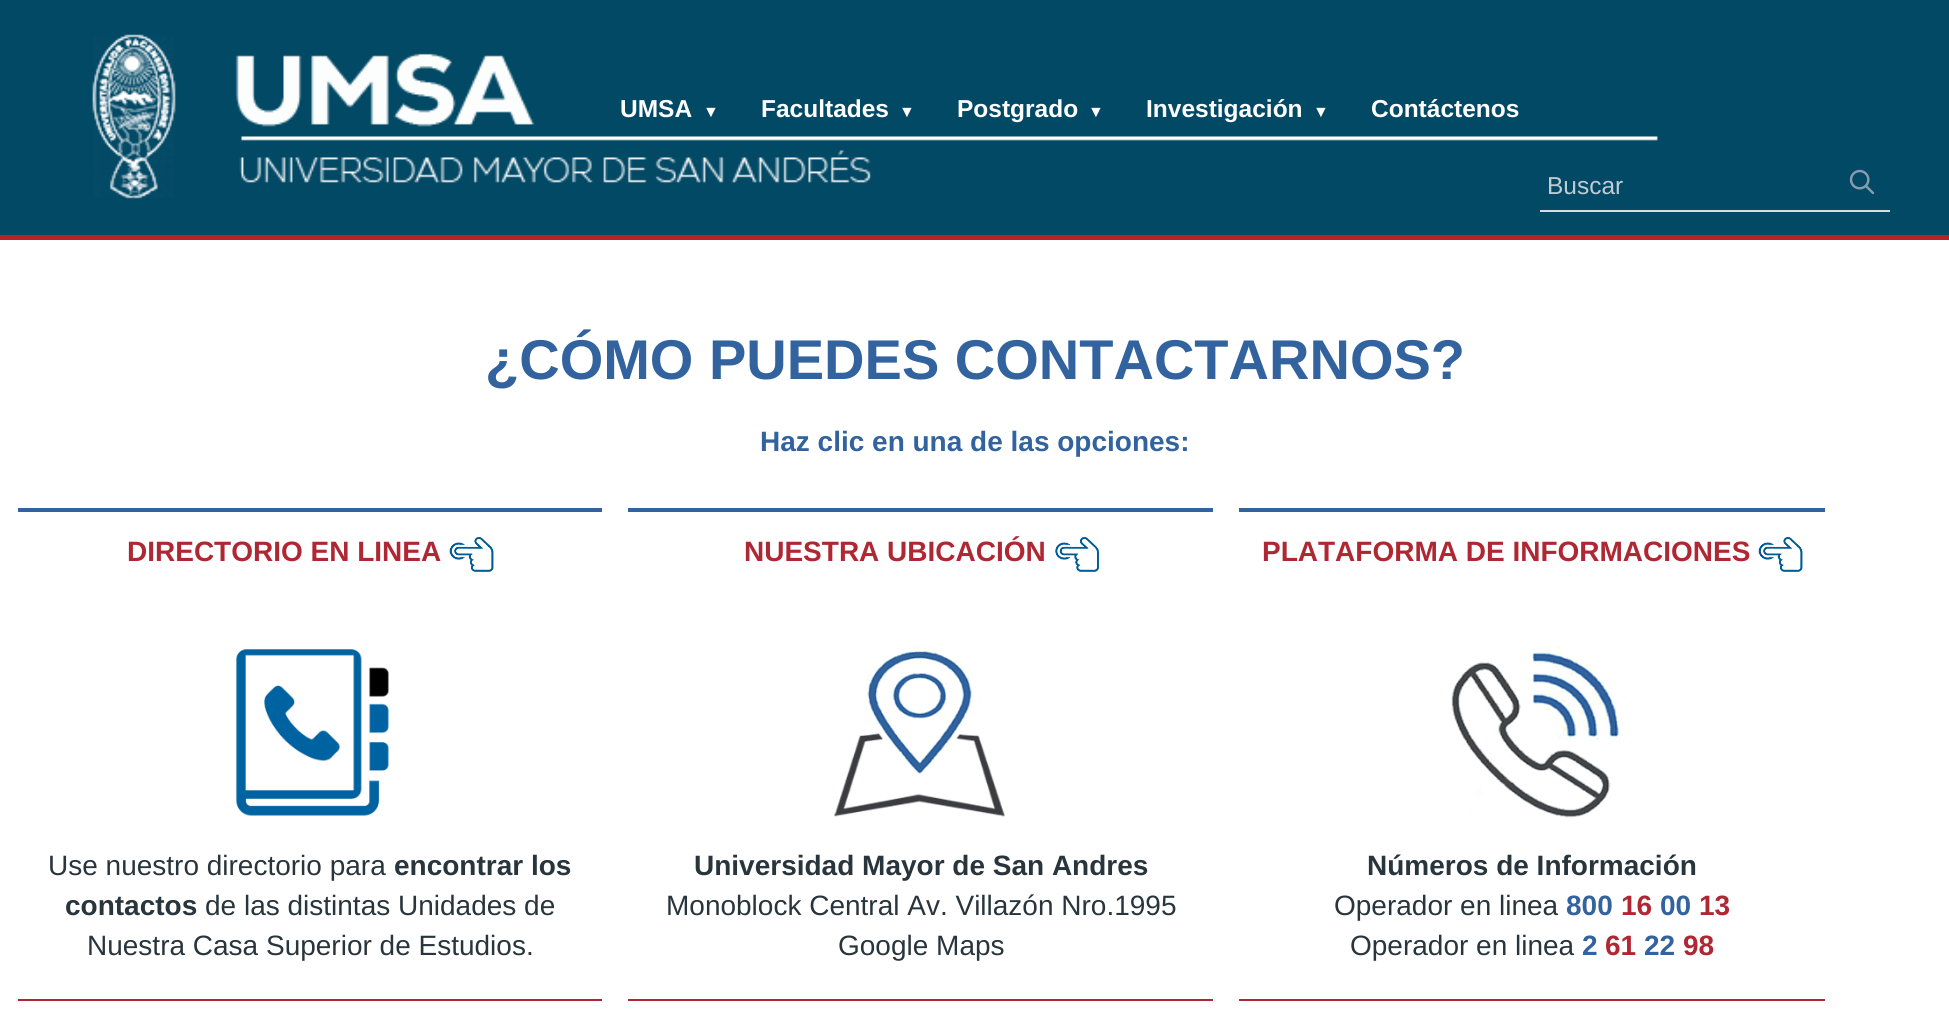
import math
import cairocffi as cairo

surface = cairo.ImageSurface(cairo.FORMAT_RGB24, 1949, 1015)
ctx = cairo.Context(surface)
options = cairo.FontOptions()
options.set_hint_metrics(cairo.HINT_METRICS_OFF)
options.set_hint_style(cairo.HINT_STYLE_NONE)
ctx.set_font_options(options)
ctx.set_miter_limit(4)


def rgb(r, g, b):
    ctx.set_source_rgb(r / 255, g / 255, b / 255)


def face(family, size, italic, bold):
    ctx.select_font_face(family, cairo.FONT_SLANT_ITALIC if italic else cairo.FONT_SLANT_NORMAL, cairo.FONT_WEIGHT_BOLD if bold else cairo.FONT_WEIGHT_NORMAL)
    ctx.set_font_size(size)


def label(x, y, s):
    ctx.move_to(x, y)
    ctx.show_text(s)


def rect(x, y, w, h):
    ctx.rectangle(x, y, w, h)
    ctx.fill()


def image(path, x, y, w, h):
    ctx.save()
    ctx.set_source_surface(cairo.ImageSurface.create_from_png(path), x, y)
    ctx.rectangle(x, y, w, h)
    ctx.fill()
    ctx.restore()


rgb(255, 255, 255)
ctx.paint()
rgb(2, 73, 102)
rect(0, 0, 1949, 235)
image('image5.png', 92, 34, 1566, 165)
face('Liberation Sans', 24.5, 0, 1)
rgb(255, 255, 255)
label(620, 117, 'UMSA')
face('Liberation Sans', 16, 0, 1)
label(703, 117, '▼')
face('Liberation Sans', 24.5, 0, 1)
label(761, 117, 'Facultades')
face('Liberation Sans', 16, 0, 1)
label(899, 117, '▼')
face('Liberation Sans', 24.5, 0, 1)
label(957, 117, 'Postgrado')
face('Liberation Sans', 16, 0, 1)
label(1088, 117, '▼')
face('Liberation Sans', 24.5, 0, 1)
label(1146, 117, 'Investigación')
face('Liberation Sans', 16, 0, 1)
label(1313, 117, '▼')
face('Liberation Sans', 24.5, 0, 1)
label(1371, 117, 'Contáctenos')
face('Liberation Sans', 56, 0, 1)
rgb(50, 99, 158)
label(485, 379, '¿CÓMO PUEDES CONTACTARNOS?')
face('Liberation Sans', 28, 0, 1)
label(760, 451, 'Haz clic en una de las opciones:')
rect(18, 508, 584, 4)
rgb(175, 39, 50)
rect(18, 999, 584, 2)
label(127, 561, 'DIRECTORIO EN LINEA')
image('image0.png', 449, 537, 45, 35)
image('image1.png', 236, 649, 153, 167)
face('Liberation Sans', 28, 0, 0)
rgb(41, 53, 61)
label(48, 875, 'Use nuestro directorio para')
face('Liberation Sans', 28, 0, 1)
label(394, 875, 'encontrar los')
label(65, 915, 'contactos')
face('Liberation Sans', 28, 0, 0)
label(205, 915, 'de las distintas Unidades de')
label(87, 955, 'Nuestra Casa Superior de Estudios.')
rgb(50, 99, 158)
rect(628, 508, 585, 4)
rgb(175, 39, 50)
rect(628, 999, 585, 2)
face('Liberation Sans', 28, 0, 1)
label(744, 561, 'NUESTRA UBICACIÓN')
image('image2.png', 1055, 537, 44, 35)
image('image3.png', 834, 645, 172, 172)
rgb(41, 53, 61)
label(694, 875, 'Universidad Mayor de San Andres')
face('Liberation Sans', 28, 0, 0)
label(666, 915, 'Monoblock Central Av. Villazón Nro.1995')
label(838, 955, 'Google Maps')
rgb(50, 99, 158)
rect(1239, 508, 586, 4)
rgb(175, 39, 50)
rect(1239, 999, 586, 2)
face('Liberation Sans', 28, 0, 1)
label(1262, 561, 'PLATAFORMA DE INFORMACIONES')
image('image0.png', 1758, 537, 45, 35)
image('image4.png', 1451, 646, 170, 172)
rgb(41, 53, 61)
label(1367, 875, 'Números de Información')
face('Liberation Sans', 28, 0, 0)
label(1334, 915, 'Operador en linea')
face('Liberation Sans', 28, 0, 1)
rgb(50, 99, 158)
label(1566, 915, '800')
rgb(175, 39, 50)
label(1621, 915, '16')
rgb(50, 99, 158)
label(1660, 915, '00')
rgb(175, 39, 50)
label(1699, 915, '13')
face('Liberation Sans', 28, 0, 0)
rgb(41, 53, 61)
label(1350, 955, 'Operador en linea')
face('Liberation Sans', 28, 0, 1)
rgb(50, 99, 158)
label(1582, 955, '2')
rgb(175, 39, 50)
label(1605, 955, '61')
rgb(50, 99, 158)
label(1644, 955, '22')
rgb(175, 39, 50)
label(1683, 955, '98')
rgb(187, 32, 38)
rect(0, 235, 1949, 5)
rgb(214, 220, 226)
rect(1540, 210, 350, 2)
face('Liberation Sans', 24.5, 0, 0)
rgb(192, 204, 211)
label(1547, 194, 'Buscar')
image('image6.png', 1849, 169, 26, 26)
surface.write_to_png('render.png')
